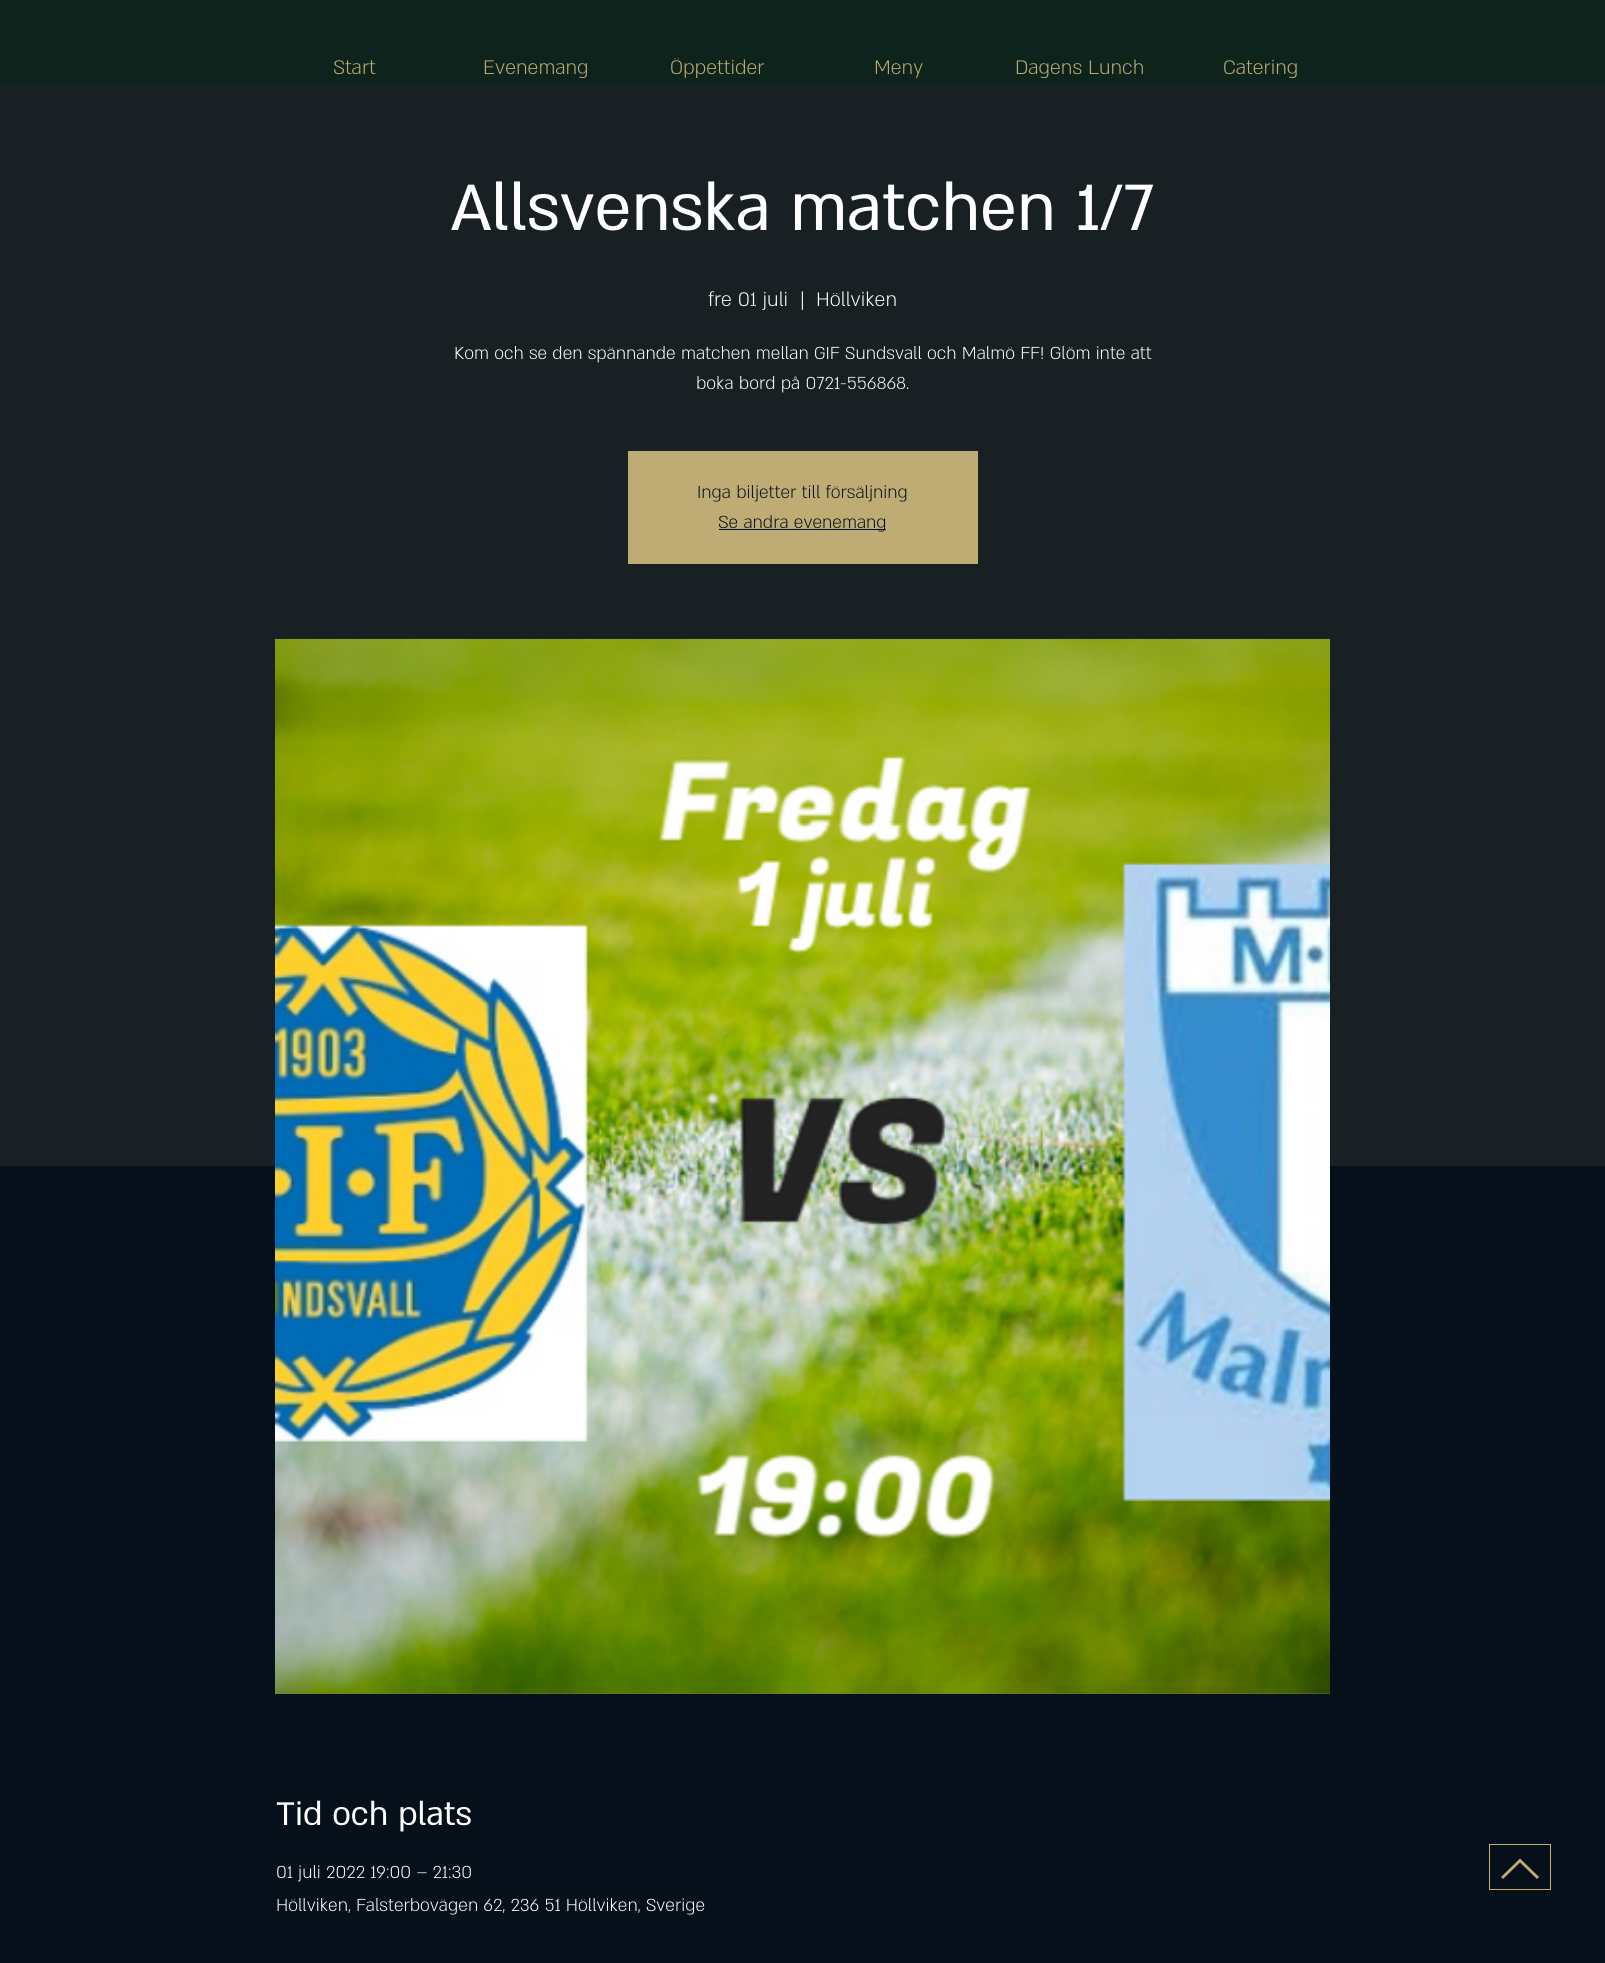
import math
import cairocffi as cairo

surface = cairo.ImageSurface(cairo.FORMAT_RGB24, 1605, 1963)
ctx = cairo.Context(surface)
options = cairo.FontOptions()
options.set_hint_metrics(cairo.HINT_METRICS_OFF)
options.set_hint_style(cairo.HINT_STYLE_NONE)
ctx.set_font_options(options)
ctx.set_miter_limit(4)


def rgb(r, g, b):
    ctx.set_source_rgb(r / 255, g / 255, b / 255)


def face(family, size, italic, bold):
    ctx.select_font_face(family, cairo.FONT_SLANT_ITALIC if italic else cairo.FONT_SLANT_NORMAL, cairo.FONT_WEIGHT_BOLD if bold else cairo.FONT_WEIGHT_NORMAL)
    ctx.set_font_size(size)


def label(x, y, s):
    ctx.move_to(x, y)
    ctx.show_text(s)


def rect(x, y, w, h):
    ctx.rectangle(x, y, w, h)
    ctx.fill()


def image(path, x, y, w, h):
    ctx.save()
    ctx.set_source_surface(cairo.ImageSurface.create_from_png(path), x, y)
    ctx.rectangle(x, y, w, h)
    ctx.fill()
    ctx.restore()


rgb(6, 16, 27)
ctx.paint()
rgb(13, 35, 28)
rect(0, 0, 1605, 84)
face('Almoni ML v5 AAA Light', 22.5, 0, 0)
rgb(190, 172, 116)
label(333, 74, 'Start')
label(483, 74, 'Evenemang')
label(670, 74, 'Öppettider')
label(874, 74, 'Meny')
label(1015, 74, 'Dagens Lunch')
label(1223, 74, 'Catering')
rgb(24, 32, 36)
rect(0, 84, 1605, 1082)
face('Almoni ML v5 AAA', 75, 0, 0)
rgb(255, 255, 255)
label(451, 230, 'Allsvenska matchen 1/7')
face('Almoni ML v5 AAA Light', 22.5, 0, 0)
label(708, 306, 'fre 01 juli')
label(800, 306, '|')
label(816, 306, 'Höllviken')
face('Almoni ML v5 AAA Light', 20, 0, 0)
label(454, 359, 'Kom och se den spännande matchen mellan GIF Sundsvall och Malmö FF! Glöm inte att')
label(696, 389, 'boka bord på 0721-556868.')
rgb(190, 172, 116)
rect(628, 451, 350, 113)
rgb(6, 16, 27)
label(697, 498, 'Inga biljetter till försäljning')
rect(719, 529, 167, 1)
label(718, 528, 'Se andra evenemang')
rgb(127, 115, 78)
rect(275, 1693, 1055, 1)
image('image0.png', 275, 638, 1055, 1056)
face('Almoni ML v5 AAA', 37.5, 0, 0)
rgb(255, 255, 255)
label(276, 1825, 'Tid och plats')
face('Almoni ML v5 AAA Light', 20, 0, 0)
label(276, 1878, '01 juli 2022 19:00 – 21:30')
label(276, 1911, 'Höllviken, Falsterbovägen 62, 236 51 Höllviken, Sverige')
ctx.rectangle(1489.5, 1844.5, 61, 45)
rgb(190, 172, 116)
ctx.set_line_width(1)
ctx.stroke()
ctx.new_path()
ctx.move_to(1501, 1877)
ctx.line_to(1503, 1879)
ctx.line_to(1520, 1862.5)
ctx.line_to(1537, 1879)
ctx.line_to(1539, 1877)
ctx.line_to(1520, 1858.5)
ctx.close_path()
ctx.fill()
surface.write_to_png('render.png')
